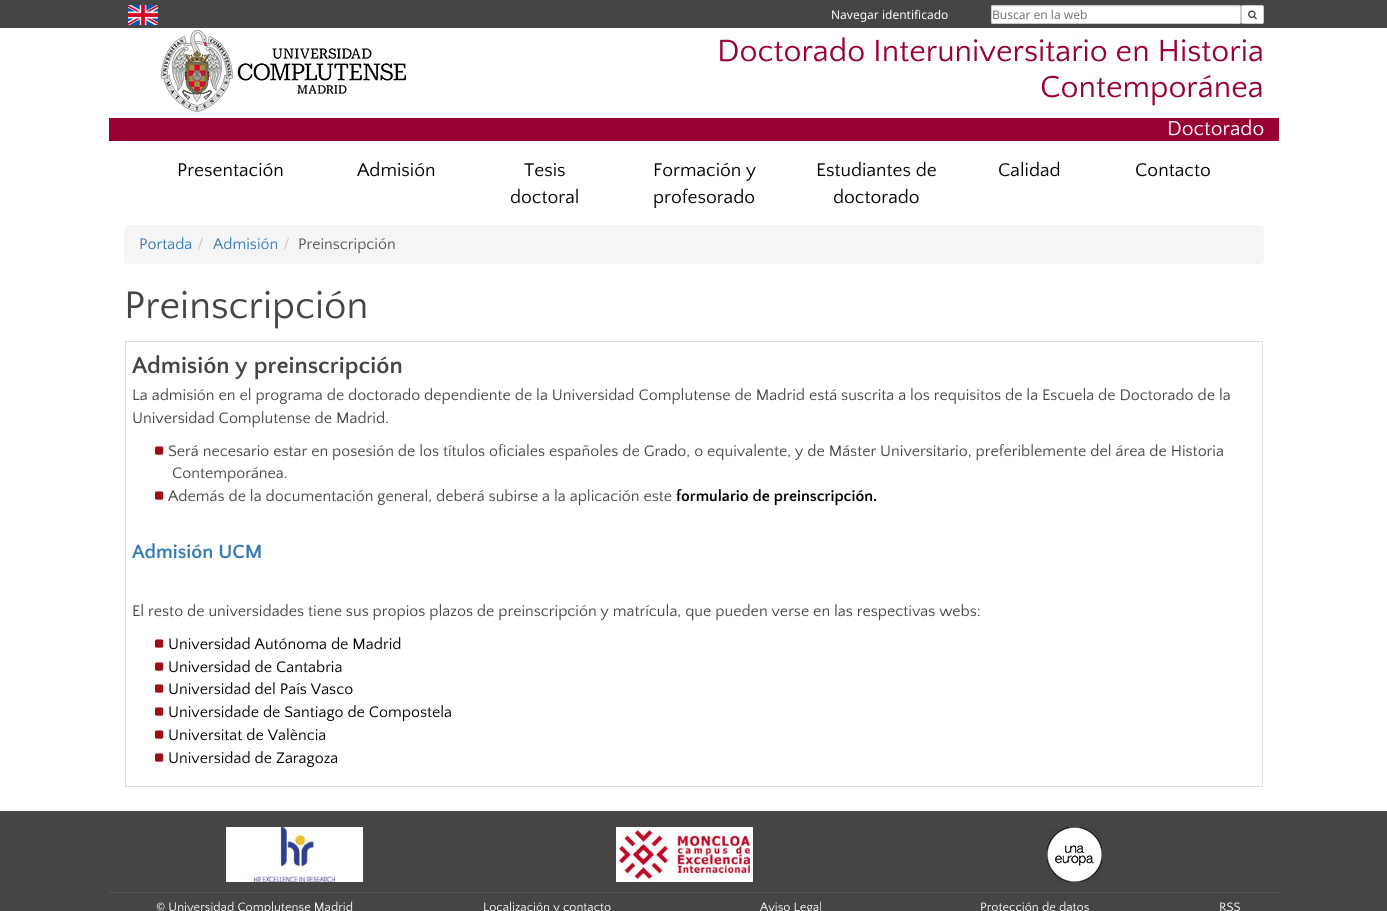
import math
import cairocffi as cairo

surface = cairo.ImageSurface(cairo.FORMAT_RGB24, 1387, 911)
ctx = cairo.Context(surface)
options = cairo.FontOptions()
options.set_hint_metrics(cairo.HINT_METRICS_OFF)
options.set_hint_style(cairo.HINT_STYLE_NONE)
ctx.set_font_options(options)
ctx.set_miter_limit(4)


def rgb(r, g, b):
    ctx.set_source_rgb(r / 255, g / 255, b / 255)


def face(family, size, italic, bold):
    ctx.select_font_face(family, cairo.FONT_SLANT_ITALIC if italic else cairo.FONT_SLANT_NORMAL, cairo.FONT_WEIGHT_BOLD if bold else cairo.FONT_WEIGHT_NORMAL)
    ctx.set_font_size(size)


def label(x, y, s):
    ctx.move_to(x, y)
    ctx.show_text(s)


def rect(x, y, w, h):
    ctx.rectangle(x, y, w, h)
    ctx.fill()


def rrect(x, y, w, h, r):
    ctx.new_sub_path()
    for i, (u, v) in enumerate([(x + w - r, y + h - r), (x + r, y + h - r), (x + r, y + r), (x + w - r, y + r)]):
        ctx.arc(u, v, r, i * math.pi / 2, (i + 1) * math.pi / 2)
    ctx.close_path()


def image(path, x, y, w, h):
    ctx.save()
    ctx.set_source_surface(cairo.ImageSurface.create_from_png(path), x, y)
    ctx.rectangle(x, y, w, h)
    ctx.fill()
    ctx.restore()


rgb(255, 255, 255)
ctx.paint()
rgb(69, 69, 69)
rect(0, 0, 1387, 28)
image('image0.png', 128, 5, 30, 20)
face('Noto Sans', 12, 0, 0)
rgb(255, 255, 255)
label(831, 19, 'Navegar identificado')
rrect(991, 5, 250, 19, 2)
ctx.fill()
rgb(236, 236, 236)
ctx.set_fill_rule(cairo.FILL_RULE_EVEN_ODD)
ctx.new_path()
ctx.move_to(993, 7)
ctx.line_to(1239, 7)
ctx.line_to(1240, 8)
ctx.line_to(1240, 6)
ctx.line_to(993, 6)
ctx.curve_to(992, 6, 992, 7, 992, 8)
ctx.close_path()
ctx.move_to(1240, 22)
ctx.line_to(1240, 22)
ctx.close_path()
ctx.fill()
rrect(991.5, 5.5, 249, 18, 1.5)
rgb(204, 204, 204)
ctx.set_line_width(1)
ctx.stroke()
rgb(117, 117, 117)
label(992, 19, 'Buscar en la web')
rgb(255, 255, 255)
rrect(1241.5, 5.5, 22, 18, 1.5)
ctx.fill_preserve()
rgb(204, 204, 204)
ctx.stroke()
image('image1.png', 1248, 10, 9, 10)
image('image2.png', 161, 30, 245, 82)
face('Quattrocento Sans', 32, 0, 0)
rgb(153, 0, 51)
label(717, 61, 'Doctorado Interuniversitario en Historia')
label(1040, 97, 'Contemporánea')
rect(109, 118, 1170, 23)
face('Quattrocento Sans', 21, 0, 0)
rgb(255, 255, 255)
label(1167, 135, 'Doctorado')
face('Quattrocento Sans', 19.25, 0, 0)
rgb(0, 0, 0)
label(177, 176, 'Presentación')
label(357, 176, 'Admisión')
label(524, 176, 'Tesis')
label(510, 203, 'doctoral')
label(653, 176, 'Formación y')
label(653, 203, 'profesorado')
label(816, 176, 'Estudiantes de')
label(833, 203, 'doctorado')
label(998, 176, 'Calidad')
label(1135, 176, 'Contacto')
rgb(245, 245, 245)
rrect(124, 225, 1140, 39, 4)
ctx.fill()
face('Quattrocento Sans', 16, 0, 0)
rgb(51, 122, 183)
label(139, 249, 'Portada')
rgb(204, 204, 204)
label(197, 249, '/')
rgb(51, 122, 183)
label(213, 249, 'Admisión')
rgb(204, 204, 204)
label(283, 249, '/')
rgb(85, 83, 84)
label(298, 249, 'Preinscripción')
face('Quattrocento Sans', 40, 0, 0)
rgb(69, 69, 69)
label(124, 318, 'Preinscripción')
ctx.rectangle(125.5, 341.5, 1137, 445)
rgb(221, 221, 221)
ctx.stroke()
face('Quattrocento Sans', 24, 0, 1)
rgb(69, 69, 69)
label(132, 373, 'Admisión y preinscripción')
face('Quattrocento Sans', 16, 0, 0)
label(132, 400, 'La admisión en el programa de doctorado dependiente de la Universidad Complutense de Madrid está suscrita a los requisitos de la Escuela de Doctorado de la')
label(132, 423, 'Universidad Complutense de Madrid.')
image('image3.png', 155, 446, 9, 9)
label(168, 456, 'Será necesario estar en posesión de los títulos oficiales españoles de Grado, o equivalente, y de Máster Universitario, preferiblemente del área de Historia')
label(172, 478, 'Contemporánea.')
image('image3.png', 155, 491, 9, 9)
label(168, 501, 'Además de la documentación general, deberá subirse a la aplicación este')
face('Quattrocento Sans', 16, 0, 1)
rgb(0, 0, 0)
label(676, 501, 'formulario de preinscripción.')
face('Quattrocento Sans', 20, 0, 1)
rgb(51, 122, 183)
label(132, 558, 'Admisión UCM')
face('Quattrocento Sans', 16, 0, 0)
rgb(69, 69, 69)
label(132, 616, 'El resto de universidades tiene sus propios plazos de preinscripción y matrícula, que pueden verse en las respectivas webs:')
image('image3.png', 155, 639, 9, 9)
rgb(0, 0, 0)
label(168, 649, 'Universidad Autónoma de Madrid')
image('image3.png', 155, 662, 9, 9)
label(168, 672, 'Universidad de Cantabria')
image('image3.png', 155, 684, 9, 9)
label(168, 694, 'Universidad del País Vasco')
image('image3.png', 155, 707, 9, 9)
label(168, 717, 'Universidade de Santiago de Compostela')
image('image3.png', 155, 730, 9, 9)
label(168, 740, 'Universitat de València')
image('image3.png', 155, 753, 9, 9)
label(168, 763, 'Universidad de Zaragoza')
rgb(69, 69, 69)
rect(0, 811, 1387, 100)
image('image4.png', 226, 827, 137, 55)
image('image5.png', 616, 827, 137, 55)
image('image6.png', 1047, 827, 55, 55)
rgb(83, 83, 83)
rect(109, 892, 1170, 1)
face('Quattrocento Sans', 12.75, 0, 0)
rgb(255, 255, 255)
label(156, 911, '© Universidad Complutense Madrid')
label(483, 911, 'Localización y contacto')
label(760, 911, 'Aviso Legal')
label(980, 911, 'Protección de datos')
label(1219, 911, 'RSS')
surface.write_to_png('render.png')
